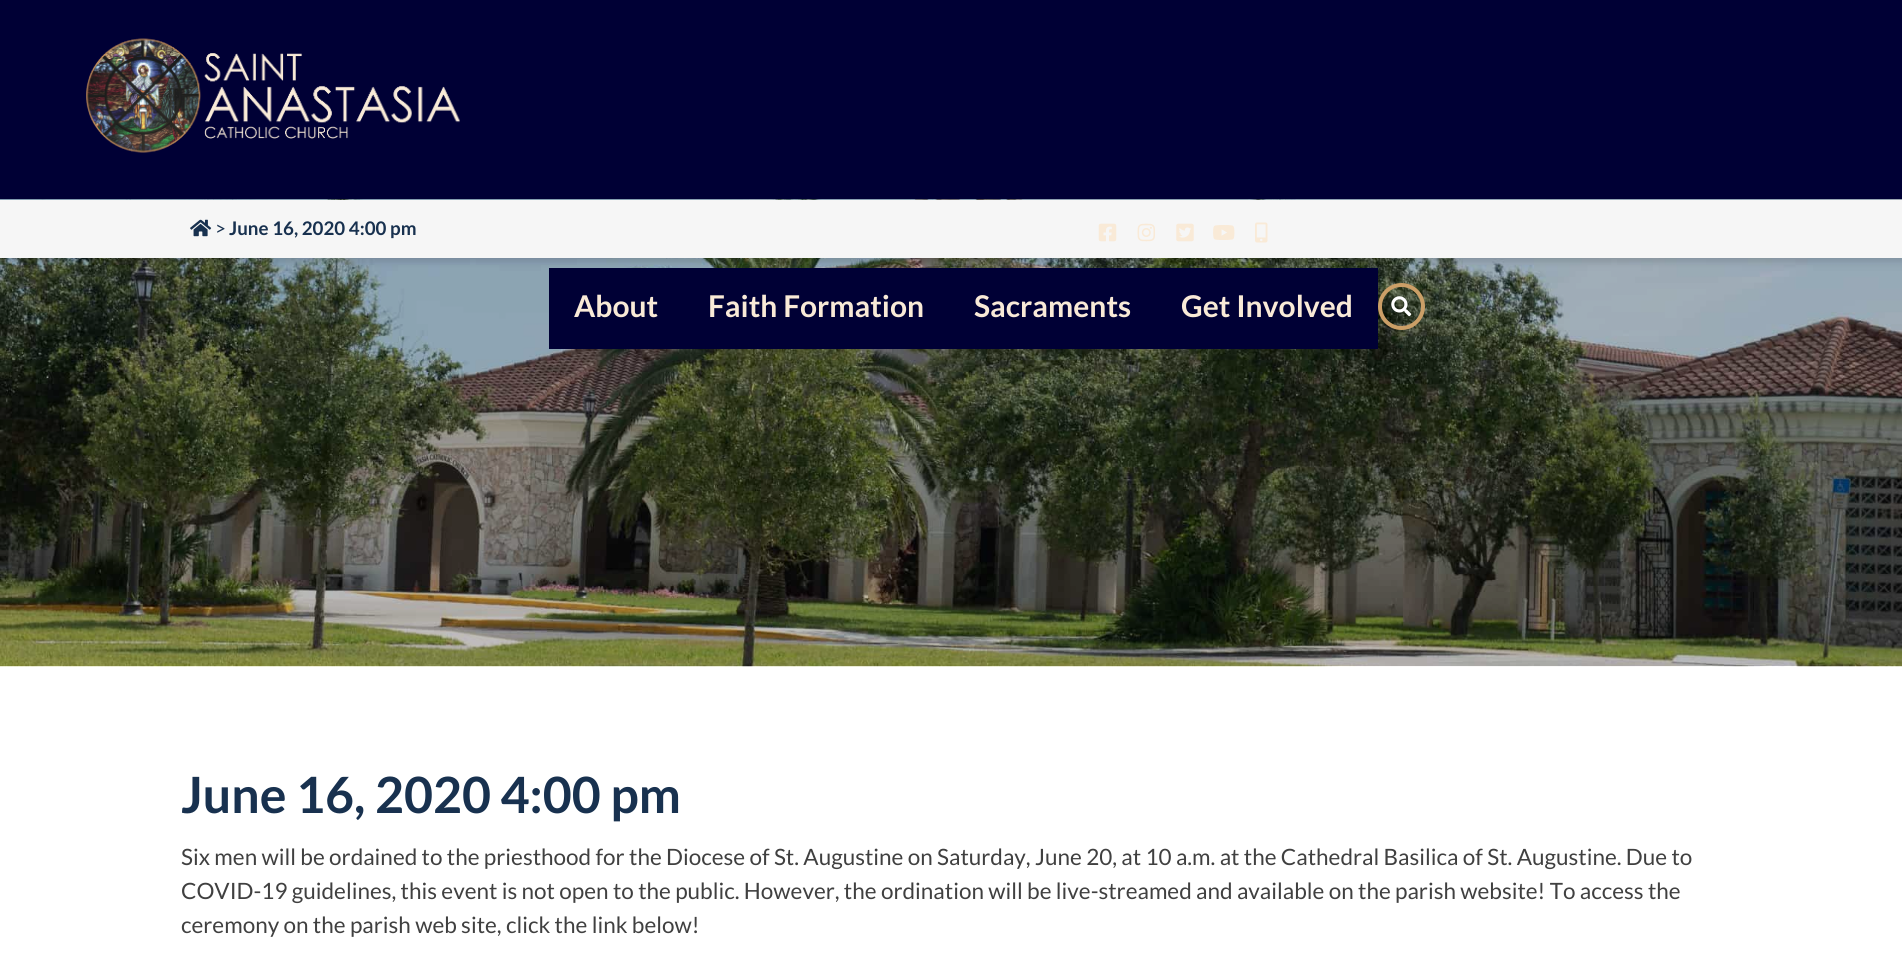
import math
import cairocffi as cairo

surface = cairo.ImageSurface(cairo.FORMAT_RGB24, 1902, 968)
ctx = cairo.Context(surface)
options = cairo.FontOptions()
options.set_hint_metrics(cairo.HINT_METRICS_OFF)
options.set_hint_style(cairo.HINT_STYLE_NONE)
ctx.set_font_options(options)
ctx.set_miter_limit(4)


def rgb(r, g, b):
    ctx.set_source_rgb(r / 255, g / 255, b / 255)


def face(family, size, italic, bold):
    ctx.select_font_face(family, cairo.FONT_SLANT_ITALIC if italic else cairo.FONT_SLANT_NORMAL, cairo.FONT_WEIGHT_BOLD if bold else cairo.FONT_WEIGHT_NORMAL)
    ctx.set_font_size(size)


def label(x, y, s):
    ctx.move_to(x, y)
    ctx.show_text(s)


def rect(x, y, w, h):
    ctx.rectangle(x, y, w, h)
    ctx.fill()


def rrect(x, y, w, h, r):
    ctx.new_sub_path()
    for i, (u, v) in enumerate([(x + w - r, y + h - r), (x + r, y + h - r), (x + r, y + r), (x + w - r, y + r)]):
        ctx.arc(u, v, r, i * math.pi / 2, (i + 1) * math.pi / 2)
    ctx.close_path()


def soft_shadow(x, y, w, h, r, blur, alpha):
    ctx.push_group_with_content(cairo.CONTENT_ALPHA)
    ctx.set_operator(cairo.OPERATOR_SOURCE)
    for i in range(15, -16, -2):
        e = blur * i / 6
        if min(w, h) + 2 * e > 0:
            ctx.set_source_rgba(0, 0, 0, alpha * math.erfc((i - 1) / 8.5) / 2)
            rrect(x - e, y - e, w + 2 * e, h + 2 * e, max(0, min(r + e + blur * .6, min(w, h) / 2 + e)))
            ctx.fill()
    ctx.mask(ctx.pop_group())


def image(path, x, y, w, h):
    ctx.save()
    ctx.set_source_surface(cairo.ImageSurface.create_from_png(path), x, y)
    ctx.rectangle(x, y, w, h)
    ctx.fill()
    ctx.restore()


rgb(255, 255, 255)
ctx.paint()
rgb(0, 0, 53)
rect(0, 0, 1902, 199)
image('image8.png', 0, 199, 1902, 468)
rgb(0, 0, 0)
soft_shadow(0, 204, 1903, 57, 0, 4, 0.15)
rgb(246, 246, 246)
rect(0, 200, 1902, 58)
image('image0.png', 190, 219, 22, 18)
face('Lato', 18.75, 0, 0)
rgb(24, 49, 79)
label(215, 235, '>')
face('Lato', 18.75, 0, 1)
label(229, 235, 'June 16, 2020 4:00 pm')
image('image1.png', 86, 38, 374, 115)
image('image2.png', 1098, 223, 19, 19)
image('image3.png', 1137, 223, 18, 19)
image('image4.png', 1176, 223, 18, 19)
image('image5.png', 1213, 225, 22, 15)
image('image6.png', 1255, 222, 13, 21)
rgb(0, 0, 53)
rect(549, 268, 829, 81)
face('Lato', 30, 0, 1)
rgb(249, 234, 215)
label(574, 317, 'About')
label(708, 317, 'Faith Formation')
label(974, 317, 'Sacraments')
label(1181, 317, 'Get Involved')
ctx.new_path()
ctx.arc(1401.5, 306.5, 21.5, 0, 2 * math.pi)
rgb(203, 159, 103)
ctx.set_line_width(4)
ctx.stroke()
image('image7.png', 1391, 296, 21, 21)
face('Lato', 50, 0, 1)
rgb(24, 49, 79)
label(181, 813, 'June 16, 2020 4:00 pm')
face('Lato', 22.5, 0, 0)
rgb(64, 64, 64)
label(181, 865, 'Six men will be ordained to the priesthood for the Diocese of St. Augustine on Saturday, June 20, at 10 a.m. at the Cathedral Basilica of St. Augustine. Due to')
label(181, 899, 'COVID-19 guidelines, this event is not open to the public. However, the ordination will be live-streamed and available on the parish website! To access the')
label(181, 933, 'ceremony on the parish web site, click the link below!')
surface.write_to_png('render.png')
